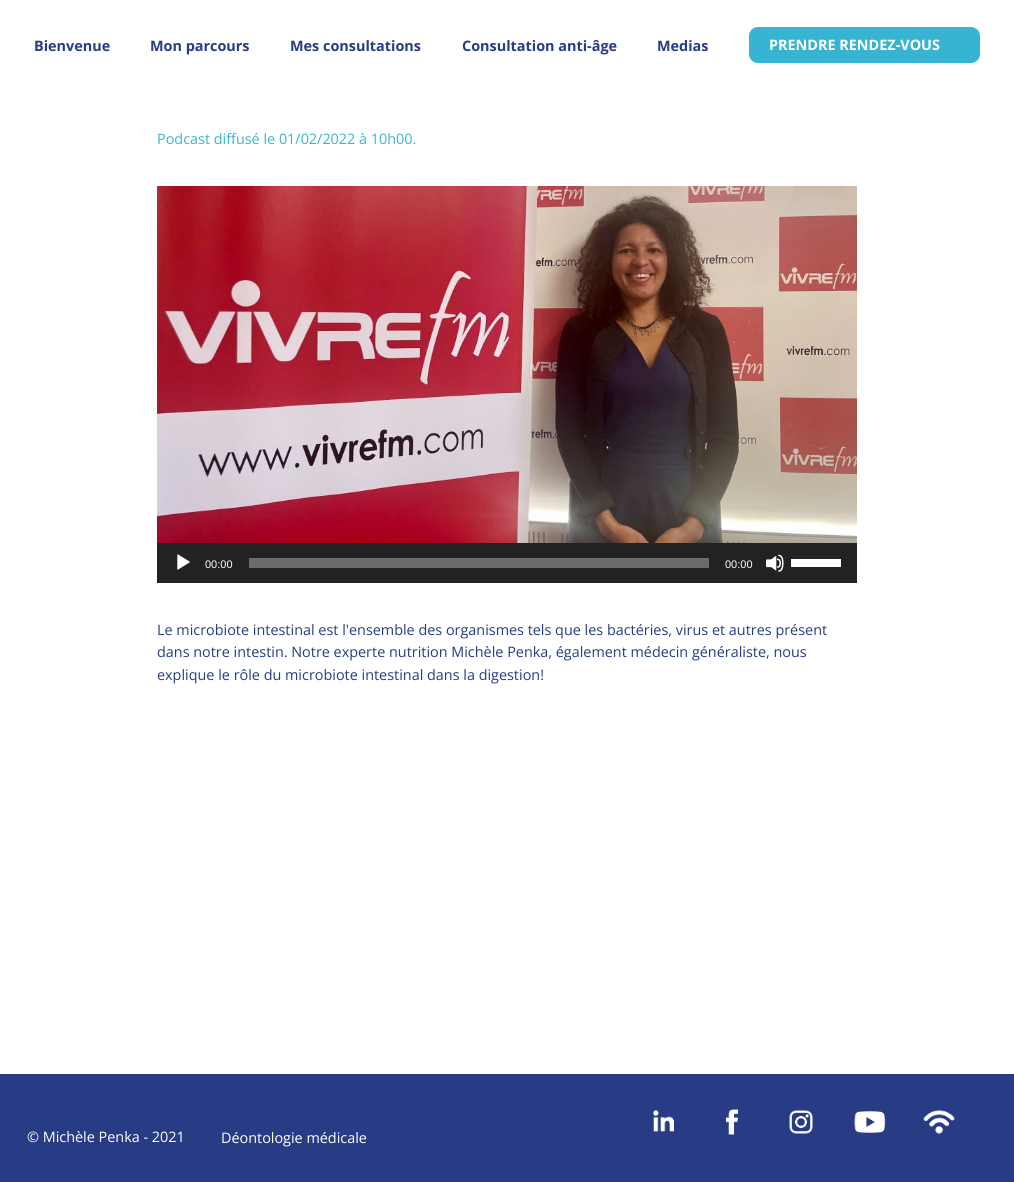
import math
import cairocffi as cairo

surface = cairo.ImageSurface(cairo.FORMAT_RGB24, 1014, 1182)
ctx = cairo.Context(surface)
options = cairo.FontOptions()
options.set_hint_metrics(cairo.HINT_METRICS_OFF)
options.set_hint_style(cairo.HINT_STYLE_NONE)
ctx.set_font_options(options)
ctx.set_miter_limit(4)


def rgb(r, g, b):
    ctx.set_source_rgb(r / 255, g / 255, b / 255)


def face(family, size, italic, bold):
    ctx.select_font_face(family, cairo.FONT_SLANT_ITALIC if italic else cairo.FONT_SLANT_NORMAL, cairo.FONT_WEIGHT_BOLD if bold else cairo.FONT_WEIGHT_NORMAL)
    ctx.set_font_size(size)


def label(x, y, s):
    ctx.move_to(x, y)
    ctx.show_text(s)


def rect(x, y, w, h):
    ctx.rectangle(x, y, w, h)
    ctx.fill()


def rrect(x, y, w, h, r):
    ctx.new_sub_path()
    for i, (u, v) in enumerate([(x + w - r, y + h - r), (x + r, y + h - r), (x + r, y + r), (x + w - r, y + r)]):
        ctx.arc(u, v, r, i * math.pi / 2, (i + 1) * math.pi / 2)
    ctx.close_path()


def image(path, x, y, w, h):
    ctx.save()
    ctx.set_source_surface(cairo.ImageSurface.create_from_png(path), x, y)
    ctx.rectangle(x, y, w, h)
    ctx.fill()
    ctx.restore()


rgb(255, 255, 255)
ctx.paint()
face('Open Sans', 14.4, 0, 1)
rgb(40, 60, 133)
label(34, 51, 'Bienvenue')
label(150, 51, 'Mon parcours')
label(290, 51, 'Mes consultations')
label(462, 51, 'Consultation anti-âge')
label(657, 51, 'Medias')
rgb(55, 180, 210)
rrect(749, 27, 231, 36, 9)
ctx.fill()
rgb(255, 255, 255)
label(769, 50, 'PRENDRE RENDEZ-VOUS')
face('Open Sans', 14.4, 0, 0)
rgb(55, 180, 210)
label(157, 144, 'Podcast diffusé le 01/02/2022 à 10h00.')
image('image0.png', 157, 186, 700, 357)
rgb(34, 34, 34)
rect(157, 543, 700, 40)
image('image1.png', 177, 554, 13, 16)
face('Liberation Sans', 11, 0, 0)
rgb(255, 255, 255)
label(205, 568, '00:00')
rgb(107, 107, 107)
rect(249, 558, 460, 10)
rgb(255, 255, 255)
label(725, 568, '00:00')
image('image2.png', 766, 554, 18, 18)
rect(791, 559, 50, 8)
face('Open Sans', 14.4, 0, 0)
rgb(40, 60, 133)
label(157, 635, 'Le microbiote intestinal est l\'ensemble des organismes tels que les bactéries, virus et autres présent')
label(157, 657, 'dans notre intestin. Notre experte nutrition Michèle Penka, également médecin généraliste, nous')
label(157, 680, 'explique le rôle du microbiote intestinal dans la digestion!')
rect(0, 1074, 1014, 108)
image('image3.png', 653, 1110, 21, 22)
image('image4.png', 726, 1109, 12, 26)
image('image5.png', 789, 1110, 24, 24)
image('image6.png', 854, 1111, 32, 22)
image('image7.png', 923, 1110, 32, 24)
rgb(255, 255, 255)
label(27, 1142, '© Michèle Penka - 2021')
label(221, 1143, 'Déontologie médicale')
surface.write_to_png('render.png')
